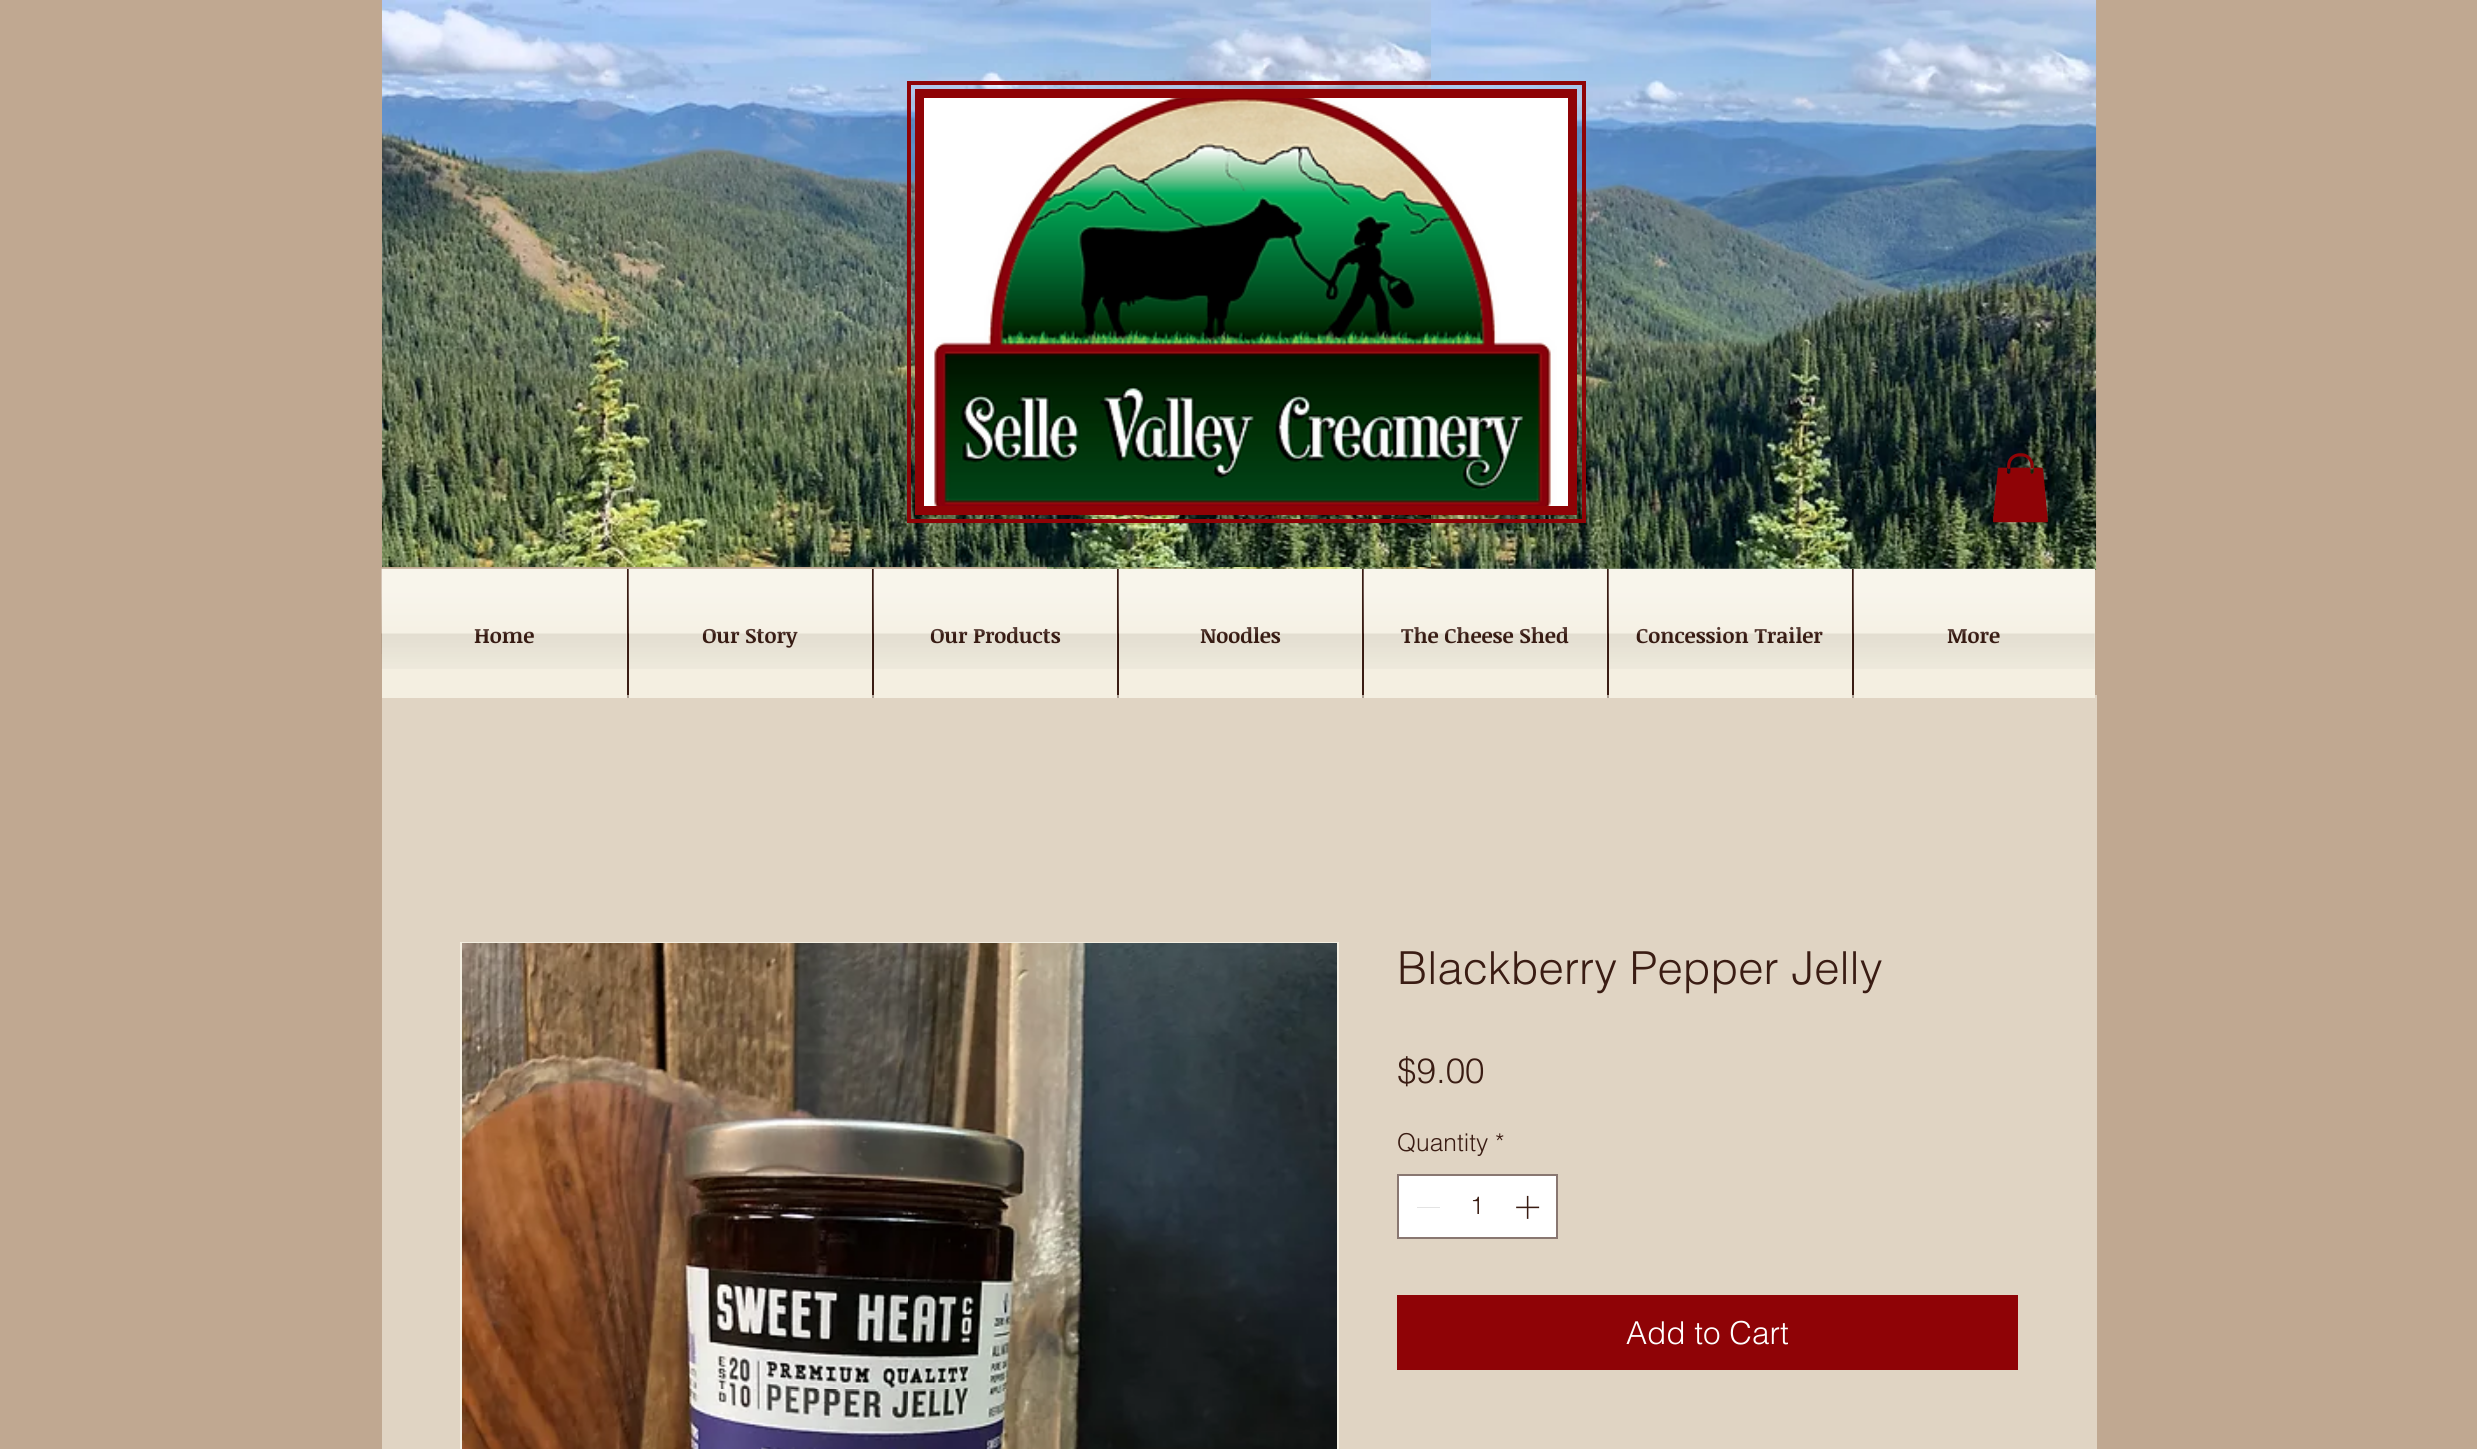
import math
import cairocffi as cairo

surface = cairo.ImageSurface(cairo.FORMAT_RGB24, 2477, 1449)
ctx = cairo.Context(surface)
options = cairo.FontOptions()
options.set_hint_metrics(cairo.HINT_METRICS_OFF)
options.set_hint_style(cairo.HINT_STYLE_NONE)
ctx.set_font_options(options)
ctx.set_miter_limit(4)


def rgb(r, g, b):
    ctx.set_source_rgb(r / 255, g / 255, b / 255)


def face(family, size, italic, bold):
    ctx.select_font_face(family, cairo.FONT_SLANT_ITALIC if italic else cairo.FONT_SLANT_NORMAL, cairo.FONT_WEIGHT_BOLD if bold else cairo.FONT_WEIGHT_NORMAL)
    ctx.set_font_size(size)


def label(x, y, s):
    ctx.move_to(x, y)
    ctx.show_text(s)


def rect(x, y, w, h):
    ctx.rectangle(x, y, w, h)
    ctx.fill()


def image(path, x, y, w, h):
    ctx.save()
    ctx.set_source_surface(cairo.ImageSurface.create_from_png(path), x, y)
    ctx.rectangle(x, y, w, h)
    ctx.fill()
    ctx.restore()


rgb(192, 168, 145)
ctx.paint()
image('image1.png', 1047, 0, 1050, 571)
image('image0.png', 382, 0, 1050, 567)
ctx.rectangle(909, 83, 675, 438)
rgb(143, 3, 6)
ctx.set_line_width(4)
ctx.stroke()
image('image2.png', 924, 98, 644, 408)
ctx.rectangle(919.5, 93.5, 653, 417)
ctx.set_line_width(9)
ctx.stroke()
image('image3.png', 1993, 453, 55, 70)
image('image4.png', 381, 568, 1714, 86)
rgb(224, 212, 195)
rect(382, 695, 1715, 754)
rgb(244, 239, 225)
rect(382, 569, 245, 129)
face('Noticia Text', 21, 0, 1)
rgb(58, 28, 19)
label(474, 643, 'Home')
image('image5.png', 381, 568, 246, 101)
rgb(244, 239, 225)
rect(629, 569, 243, 126)
rect(627, 695, 1468, 3)
rgb(58, 28, 19)
rect(627, 569, 2, 129)
rgb(173, 159, 147)
rect(627, 695, 2, 3)
rgb(58, 28, 19)
label(702, 643, 'Our Story')
image('image6.png', 628, 568, 244, 101)
rgb(244, 239, 225)
rect(874, 569, 243, 126)
rgb(58, 28, 19)
rect(872, 569, 2, 129)
rgb(173, 159, 147)
rect(872, 695, 2, 3)
rgb(58, 28, 19)
label(930, 643, 'Our Products')
image('image7.png', 873, 568, 244, 101)
rgb(244, 239, 225)
rect(1119, 569, 243, 126)
rgb(58, 28, 19)
rect(1117, 569, 2, 129)
rgb(173, 159, 147)
rect(1117, 695, 2, 3)
rgb(58, 28, 19)
label(1200, 643, 'Noodles')
image('image8.png', 1118, 568, 244, 101)
rgb(244, 239, 225)
rect(1364, 569, 243, 126)
rgb(58, 28, 19)
rect(1362, 569, 2, 129)
rgb(173, 159, 147)
rect(1362, 695, 2, 3)
rgb(58, 28, 19)
label(1401, 643, 'The Cheese Shed')
image('image9.png', 1363, 568, 244, 101)
rgb(244, 239, 225)
rect(1609, 569, 243, 126)
rgb(58, 28, 19)
rect(1607, 569, 2, 129)
rgb(173, 159, 147)
rect(1607, 695, 2, 3)
rgb(58, 28, 19)
label(1636, 643, 'Concession Trailer')
image('image10.png', 1608, 568, 244, 101)
rgb(244, 239, 225)
rect(1854, 569, 241, 126)
rgb(58, 28, 19)
rect(1852, 569, 2, 129)
rgb(173, 159, 147)
rect(1852, 695, 2, 3)
rgb(58, 28, 19)
label(1947, 643, 'More')
image('image11.png', 1853, 568, 242, 101)
ctx.rectangle(461, 943, 877, 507)
rgb(244, 239, 225)
ctx.set_line_width(2)
ctx.stroke()
image('image12.png', 462, 943, 875, 506)
face('helvetica Light', 45.5, 0, 0)
rgb(58, 28, 19)
label(1397, 984, 'Blackberry Pepper Jelly')
face('helvetica Light', 35, 0, 0)
label(1397, 1083, '$9.00')
face('helvetica Light', 24.5, 0, 0)
label(1397, 1151, 'Quantity *')
rgb(255, 255, 255)
ctx.rectangle(1398, 1175, 159, 63)
ctx.fill_preserve()
rgb(137, 119, 113)
ctx.stroke()
rgb(227, 227, 227)
rect(1417, 1207, 23, 1)
rgb(58, 28, 19)
label(1470, 1214, '1')
image('image13.png', 1516, 1195, 24, 24)
rgb(143, 3, 6)
rect(1397, 1295, 621, 75)
face('helvetica Light', 31.5, 0, 0)
rgb(255, 255, 255)
label(1626, 1344, 'Add to Cart')
surface.write_to_png('render.png')
